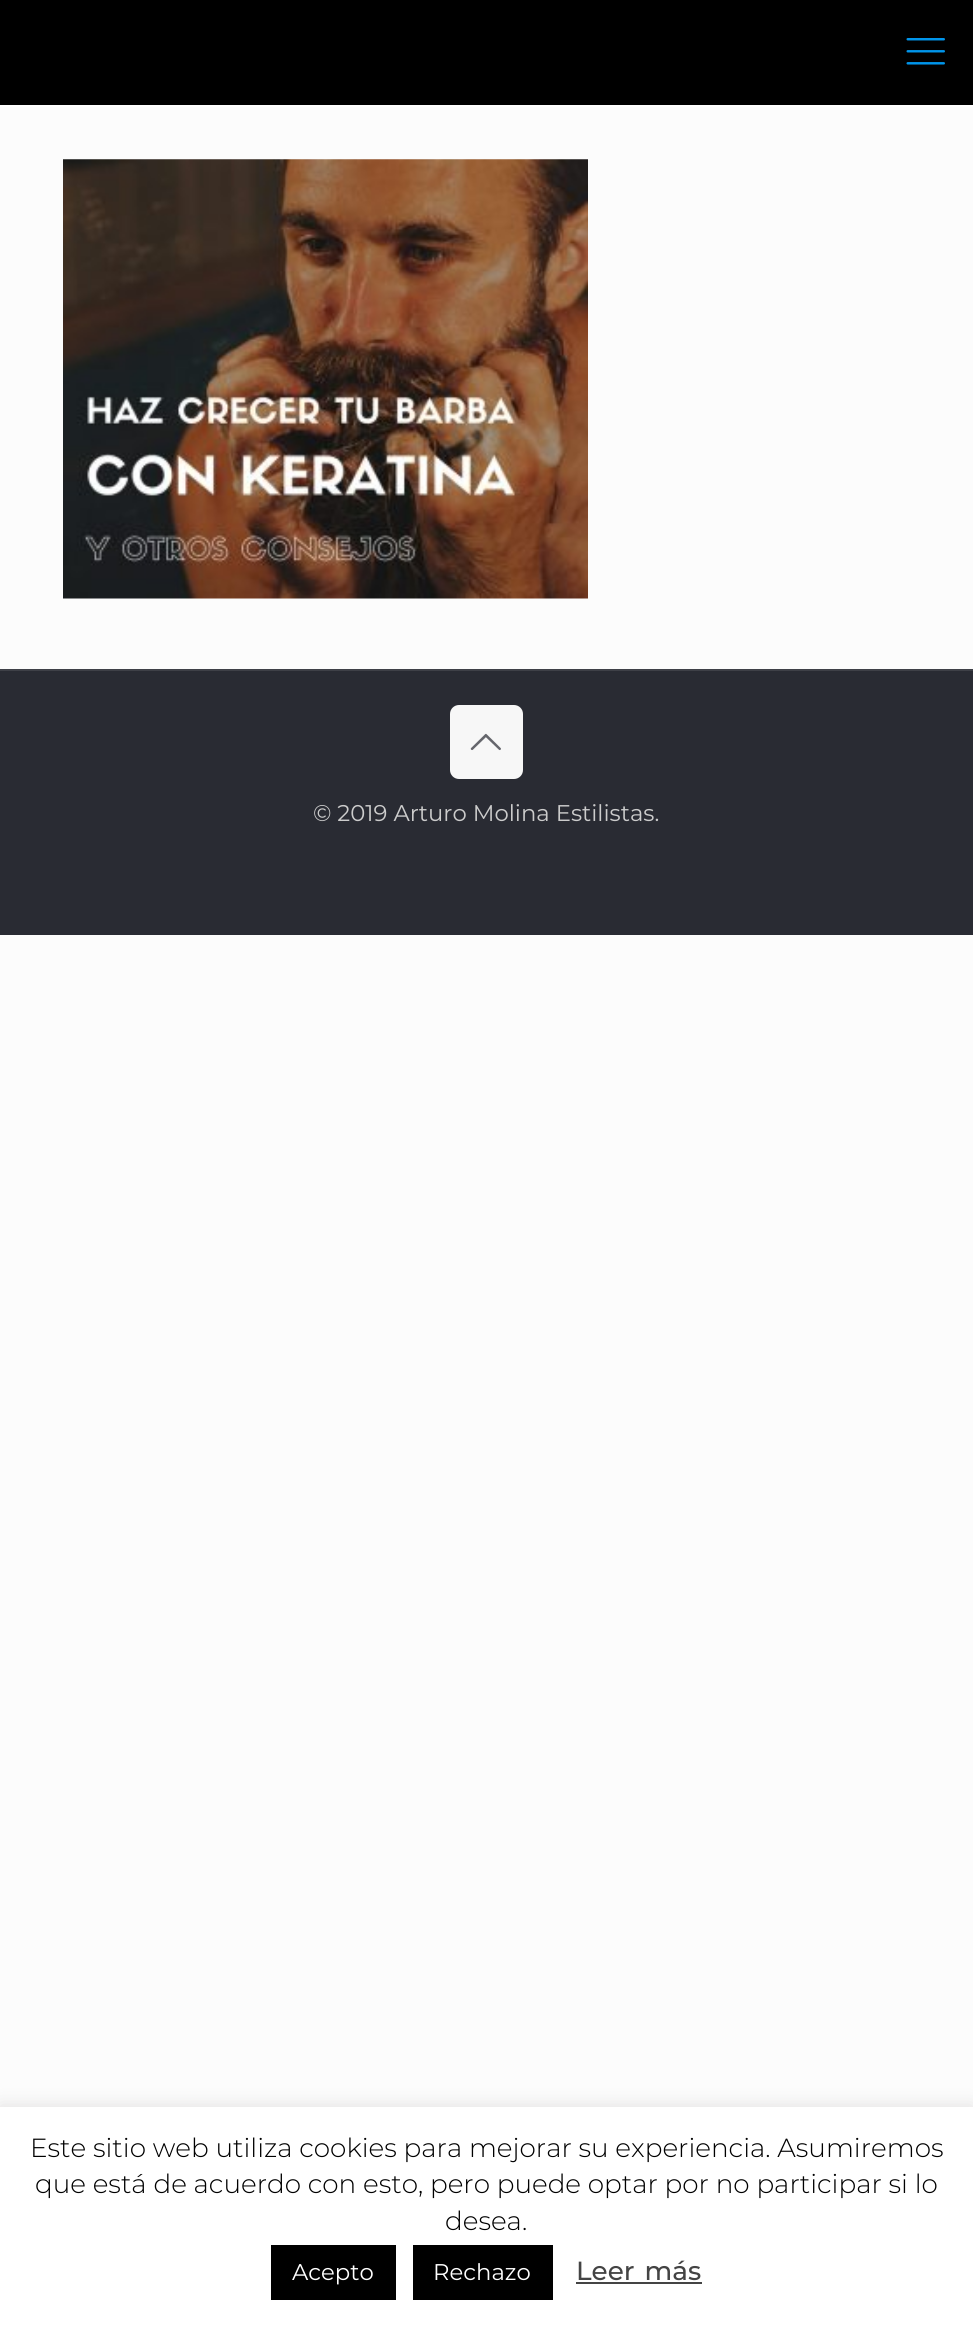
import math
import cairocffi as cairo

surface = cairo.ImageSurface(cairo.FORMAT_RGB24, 973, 2328)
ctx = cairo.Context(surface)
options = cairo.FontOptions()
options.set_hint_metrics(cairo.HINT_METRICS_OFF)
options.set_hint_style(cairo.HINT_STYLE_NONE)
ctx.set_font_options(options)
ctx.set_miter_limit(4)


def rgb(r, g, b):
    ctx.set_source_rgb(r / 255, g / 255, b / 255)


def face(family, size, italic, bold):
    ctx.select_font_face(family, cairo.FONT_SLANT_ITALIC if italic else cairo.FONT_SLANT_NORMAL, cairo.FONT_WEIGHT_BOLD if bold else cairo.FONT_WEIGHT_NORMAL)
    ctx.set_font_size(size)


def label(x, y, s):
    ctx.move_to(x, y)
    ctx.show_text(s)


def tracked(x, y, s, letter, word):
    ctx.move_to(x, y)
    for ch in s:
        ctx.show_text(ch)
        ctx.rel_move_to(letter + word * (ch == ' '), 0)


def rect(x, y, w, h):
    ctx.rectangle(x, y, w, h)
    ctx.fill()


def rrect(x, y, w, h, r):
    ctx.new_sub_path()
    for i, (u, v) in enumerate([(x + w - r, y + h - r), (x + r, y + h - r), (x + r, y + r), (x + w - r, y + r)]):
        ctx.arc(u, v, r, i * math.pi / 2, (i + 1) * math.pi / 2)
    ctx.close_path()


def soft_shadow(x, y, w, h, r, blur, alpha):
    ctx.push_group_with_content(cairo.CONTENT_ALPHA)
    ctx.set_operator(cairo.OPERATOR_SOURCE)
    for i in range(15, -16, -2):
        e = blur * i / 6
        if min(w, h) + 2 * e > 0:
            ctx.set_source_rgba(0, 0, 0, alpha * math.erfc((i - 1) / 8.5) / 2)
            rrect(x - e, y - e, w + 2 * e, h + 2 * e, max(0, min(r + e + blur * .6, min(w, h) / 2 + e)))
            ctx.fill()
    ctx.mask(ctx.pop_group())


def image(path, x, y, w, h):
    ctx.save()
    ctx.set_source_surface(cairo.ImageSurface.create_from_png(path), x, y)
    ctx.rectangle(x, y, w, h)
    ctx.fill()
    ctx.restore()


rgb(252, 252, 252)
ctx.paint()
rgb(255, 255, 255)
rect(0, 105, 973, 2)
rgb(0, 0, 0)
rect(0, 0, 973, 105)
image('image0.png', 906, 38, 39, 27)
image('image1.png', 63, 159, 525, 440)
rgb(41, 43, 51)
rect(0, 671, 973, 264)
rgb(62, 64, 71)
rect(0, 669, 973, 2)
rgb(247, 247, 247)
rrect(450, 705, 73, 74, 9)
ctx.fill()
image('image2.png', 470, 733, 31, 18)
face('Montserrat', 22.75, 0, 0)
rgb(204, 204, 204)
label(313, 821, '© 2019 Arturo Molina Estilistas.')
rgb(172, 171, 171)
soft_shadow(0, 2105, 973, 223, 0, 9, 0.3)
rgb(255, 255, 255)
rect(0, 2107, 973, 221)
face('Montserrat Light', 26.25, 0, 0)
rgb(0, 0, 0)
label(30, 2157, 'Este sitio web utiliza cookies para mejorar su experiencia. Asumiremos')
label(35, 2193, 'que está de acuerdo con esto, pero puede optar por no participar si lo')
label(445, 2230, 'desea.')
rect(271, 2245, 125, 55)
face('Montserrat', 22.75, 0, 0)
rgb(255, 255, 255)
label(292, 2280, 'Acepto')
rgb(0, 0, 0)
rect(413, 2245, 140, 55)
rgb(255, 255, 255)
label(433, 2280, 'Rechazo')
face('Montserrat Medium', 26.25, 0, 0)
rgb(68, 68, 68)
tracked(576, 2280, 'Leer más', 0, 3)
rect(576, 2282, 126, 2)
surface.write_to_png('render.png')
